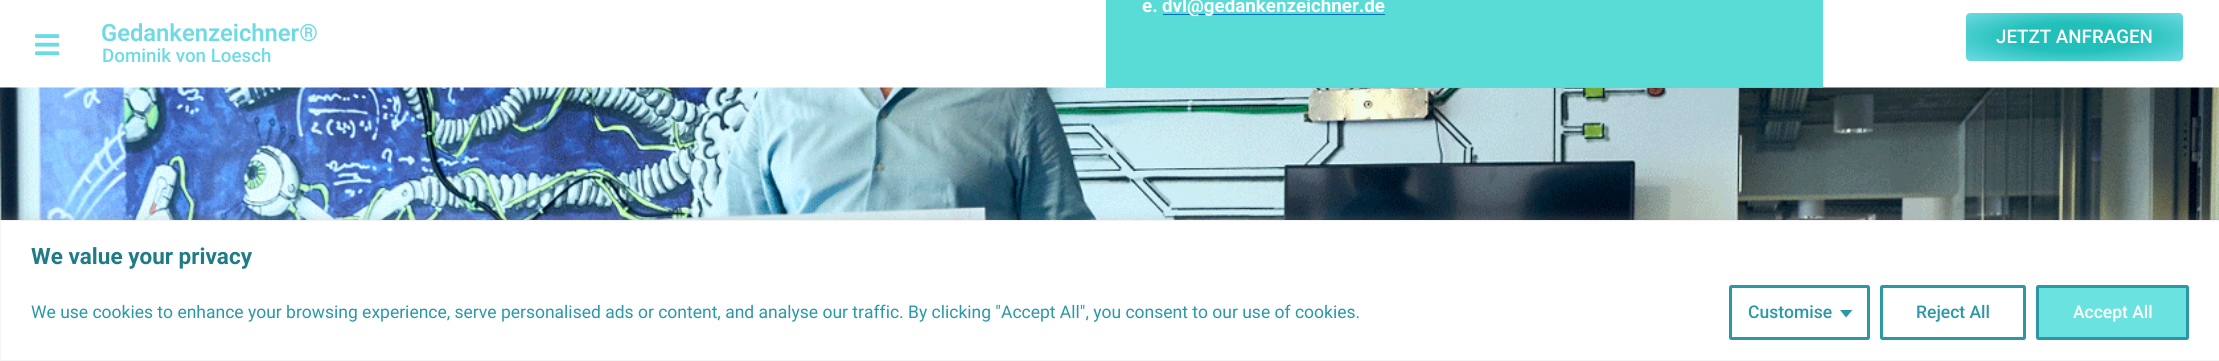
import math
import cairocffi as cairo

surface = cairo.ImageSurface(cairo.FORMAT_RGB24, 2219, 361)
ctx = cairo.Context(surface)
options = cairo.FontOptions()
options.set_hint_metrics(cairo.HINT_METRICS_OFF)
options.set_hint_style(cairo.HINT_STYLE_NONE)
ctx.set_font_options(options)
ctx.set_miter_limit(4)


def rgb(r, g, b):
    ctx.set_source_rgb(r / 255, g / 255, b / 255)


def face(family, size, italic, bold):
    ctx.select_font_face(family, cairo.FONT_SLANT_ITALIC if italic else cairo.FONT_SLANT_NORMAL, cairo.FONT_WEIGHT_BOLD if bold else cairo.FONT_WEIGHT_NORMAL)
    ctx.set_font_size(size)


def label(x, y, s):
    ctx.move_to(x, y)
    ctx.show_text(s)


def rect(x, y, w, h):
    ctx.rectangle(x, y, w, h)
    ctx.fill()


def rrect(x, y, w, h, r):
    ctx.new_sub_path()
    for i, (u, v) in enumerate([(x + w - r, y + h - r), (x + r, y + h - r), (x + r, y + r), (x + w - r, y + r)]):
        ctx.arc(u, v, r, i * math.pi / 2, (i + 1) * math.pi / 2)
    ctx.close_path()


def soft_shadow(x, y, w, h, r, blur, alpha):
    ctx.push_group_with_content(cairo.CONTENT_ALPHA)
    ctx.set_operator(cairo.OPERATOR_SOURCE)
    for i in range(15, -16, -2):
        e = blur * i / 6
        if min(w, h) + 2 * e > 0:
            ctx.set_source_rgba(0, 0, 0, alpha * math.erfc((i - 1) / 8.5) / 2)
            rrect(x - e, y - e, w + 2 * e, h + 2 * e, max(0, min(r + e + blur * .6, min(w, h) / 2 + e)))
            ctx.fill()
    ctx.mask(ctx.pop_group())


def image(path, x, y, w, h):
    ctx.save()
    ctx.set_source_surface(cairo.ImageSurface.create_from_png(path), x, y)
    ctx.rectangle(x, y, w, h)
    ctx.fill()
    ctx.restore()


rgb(255, 255, 255)
ctx.paint()
image('image0.png', 0, 87, 2219, 133)
ctx.set_source_rgba(0.286, 0.847, 0.82, 0.91)
rect(1106, 0, 717, 88)
face('Roboto', 18.75, 0, 1)
rgb(255, 255, 255)
label(1142, 12, 'e.')
rgb(1, 112, 185)
rect(1163, 14, 222, 1)
rgb(255, 255, 255)
label(1162, 12, 'dvl@gedankenzeichner.de')
image('image1.png', 35, 34, 25, 22)
face('Roboto SemiBold', 23.75, 0, 0)
rgb(110, 219, 228)
label(101, 41, 'Gedankenzeichner®')
face('Roboto Medium', 18.75, 0, 0)
label(102, 62, 'Dominik von Loesch')
gradient = cairo.RadialGradient(0, 0, 0, 0, 0, 1)
gradient.set_matrix(cairo.Matrix(1 / 153, 0, 0, 1 / 34, -1 * 2074 / 153, -1 * 37 / 34))
gradient.add_color_stop_rgba(0.42, 0.137, 0.753, 0.729, 1)
gradient.add_color_stop_rgba(1, 0.431, 0.859, 0.894, 1)
ctx.set_source(gradient)
rrect(1966, 13, 217, 48, 4)
ctx.fill()
rgb(255, 255, 255)
label(1996, 43, 'JETZT ANFRAGEN')
rgb(172, 171, 171)
soft_shadow(0, 219, 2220, 141, 0, 6, 0.3)
rgb(255, 255, 255)
ctx.rectangle(0.5, 220.5, 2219, 140)
ctx.fill_preserve()
rgb(244, 244, 244)
ctx.set_line_width(1)
ctx.stroke()
face('Roboto', 22.5, 0, 1)
rgb(31, 123, 134)
label(31, 264, 'We value your privacy')
face('Roboto', 17.5, 0, 0)
rgb(42, 152, 166)
label(31, 318, 'We use cookies to enhance your browsing experience, serve personalised ads or content, and analyse our traffic. By clicking "Accept All", you consent to our use of cookies.')
rrect(1730.5, 286.5, 138, 52, 1)
ctx.set_line_width(3)
ctx.stroke()
face('Roboto Medium', 17.5, 0, 0)
label(1748, 318, 'Customise')
ctx.new_path()
ctx.move_to(1840, 310)
ctx.line_to(1852.5, 310)
ctx.line_to(1846, 317.5)
ctx.close_path()
ctx.fill()
rrect(1881.5, 286.5, 143, 52, 1)
ctx.stroke()
label(1916, 318, 'Reject All')
rgb(106, 226, 223)
rrect(2037.5, 286.5, 150, 52, 1)
ctx.fill_preserve()
rgb(42, 152, 166)
ctx.stroke()
rgb(255, 255, 255)
label(2073, 318, 'Accept All')
surface.write_to_png('render.png')
